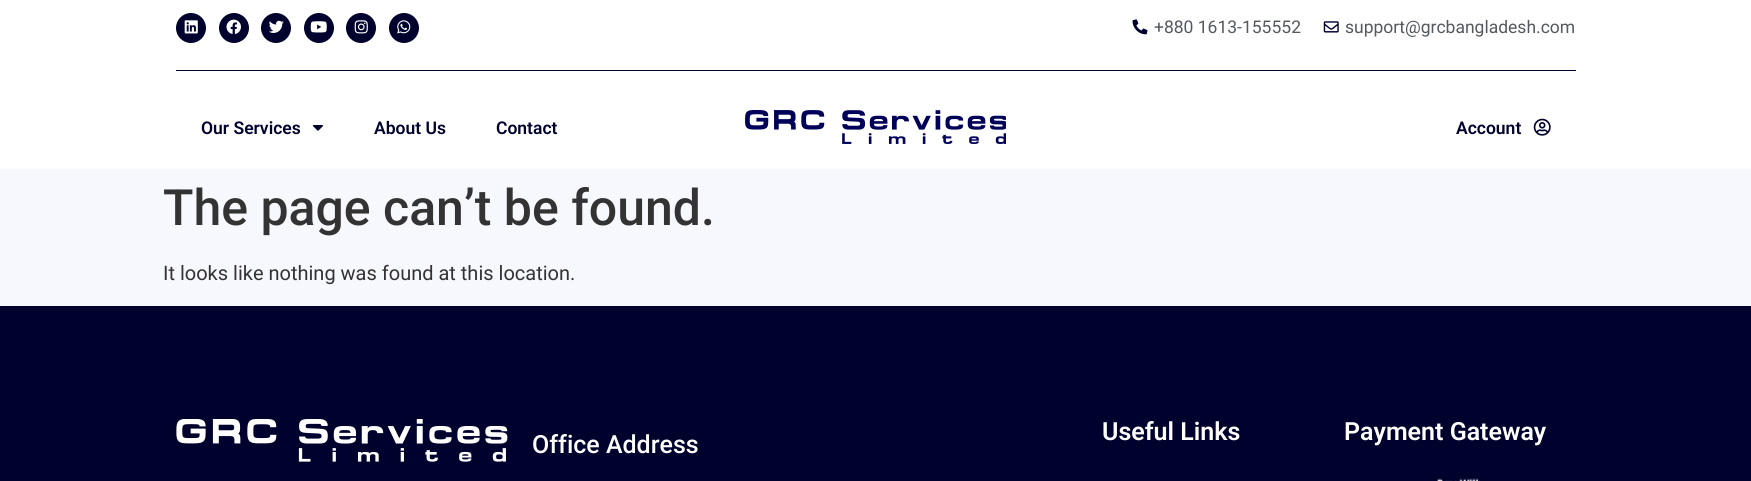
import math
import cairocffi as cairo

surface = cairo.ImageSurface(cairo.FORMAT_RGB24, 1751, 481)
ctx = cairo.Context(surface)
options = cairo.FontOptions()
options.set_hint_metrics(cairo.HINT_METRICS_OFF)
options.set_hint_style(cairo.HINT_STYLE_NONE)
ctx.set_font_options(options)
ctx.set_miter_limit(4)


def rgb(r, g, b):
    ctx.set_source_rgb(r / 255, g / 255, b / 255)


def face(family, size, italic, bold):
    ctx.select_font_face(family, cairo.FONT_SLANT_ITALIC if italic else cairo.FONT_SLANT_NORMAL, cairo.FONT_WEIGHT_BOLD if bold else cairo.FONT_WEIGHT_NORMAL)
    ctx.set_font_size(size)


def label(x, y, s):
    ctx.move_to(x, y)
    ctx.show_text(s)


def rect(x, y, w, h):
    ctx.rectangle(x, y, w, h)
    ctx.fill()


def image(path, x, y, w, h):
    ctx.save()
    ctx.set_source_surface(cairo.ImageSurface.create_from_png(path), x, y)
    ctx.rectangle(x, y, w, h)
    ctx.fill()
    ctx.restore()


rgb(247, 248, 253)
ctx.paint()
rgb(255, 255, 255)
rect(0, 0, 1751, 169)
rgb(0, 2, 46)
ctx.arc(191, 28, 15, 0, 2 * math.pi)
ctx.fill()
image('image0.png', 184, 20, 14, 14)
ctx.arc(234, 28, 15, 0, 2 * math.pi)
ctx.fill()
image('image1.png', 226, 19, 15, 15)
ctx.arc(276, 28, 15, 0, 2 * math.pi)
ctx.fill()
image('image2.png', 269, 20, 15, 13)
ctx.arc(319, 28, 15, 0, 2 * math.pi)
ctx.fill()
image('image3.png', 310, 21, 17, 12)
ctx.arc(361, 28, 15, 0, 2 * math.pi)
ctx.fill()
image('image4.png', 354, 20, 14, 14)
ctx.arc(404, 28, 15, 0, 2 * math.pi)
ctx.fill()
image('image5.png', 397, 20, 14, 14)
image('image6.png', 1132, 19, 16, 16)
face('Roboto', 17.5, 0, 0)
rgb(84, 89, 95)
label(1154, 33, '+880 1613-155552')
image('image7.png', 1323, 21, 16, 12)
label(1345, 33, 'support@grcbangladesh.com')
rgb(0, 2, 46)
rect(176, 70, 1400, 1)
face('Roboto SemiBold', 17.5, 0, 0)
label(201, 134, 'Our Services')
image('image8.png', 312, 125, 11, 6)
label(374, 134, 'About Us')
label(496, 134, 'Contact')
image('image9.png', 745, 110, 261, 34)
label(1456, 134, 'Account')
image('image10.png', 1533, 118, 18, 18)
face('Roboto Medium', 50, 0, 0)
rgb(51, 51, 51)
label(163, 225, 'The page can’t be found.')
face('Roboto', 20, 0, 0)
label(163, 280, 'It looks like nothing was found at this location.')
rgb(0, 2, 46)
rect(0, 306, 1751, 175)
image('image11.png', 176, 419, 332, 43)
face('Roboto Medium', 25, 0, 0)
rgb(255, 255, 255)
label(532, 453, 'Office Address')
face('Roboto SemiBold', 25, 0, 0)
label(1102, 440, 'Useful Links')
label(1344, 440, 'Payment Gateway')
image('image12.png', 1437, 478, 43, 3)
surface.write_to_png('render.png')
